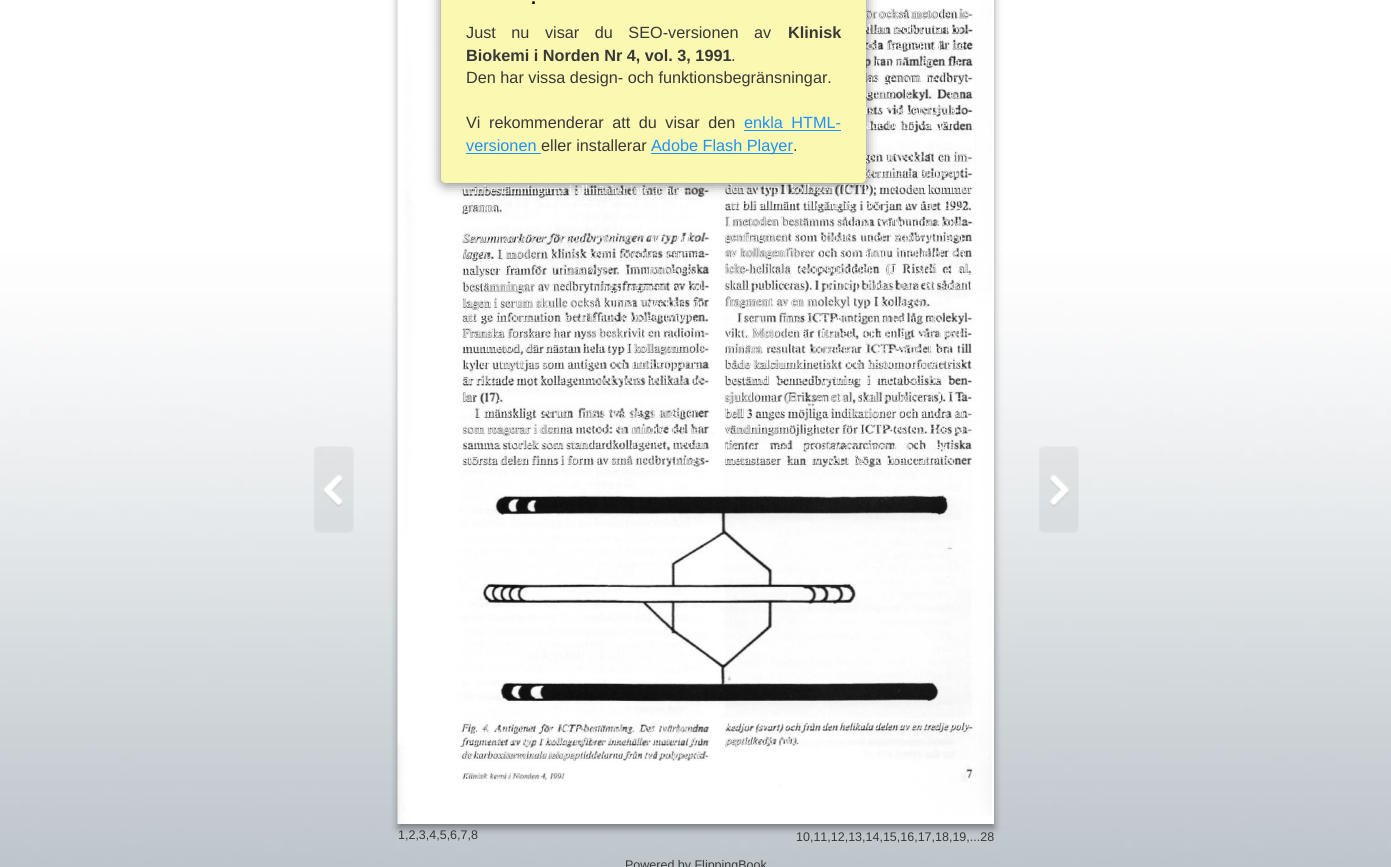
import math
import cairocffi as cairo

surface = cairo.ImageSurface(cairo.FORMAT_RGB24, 1391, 867)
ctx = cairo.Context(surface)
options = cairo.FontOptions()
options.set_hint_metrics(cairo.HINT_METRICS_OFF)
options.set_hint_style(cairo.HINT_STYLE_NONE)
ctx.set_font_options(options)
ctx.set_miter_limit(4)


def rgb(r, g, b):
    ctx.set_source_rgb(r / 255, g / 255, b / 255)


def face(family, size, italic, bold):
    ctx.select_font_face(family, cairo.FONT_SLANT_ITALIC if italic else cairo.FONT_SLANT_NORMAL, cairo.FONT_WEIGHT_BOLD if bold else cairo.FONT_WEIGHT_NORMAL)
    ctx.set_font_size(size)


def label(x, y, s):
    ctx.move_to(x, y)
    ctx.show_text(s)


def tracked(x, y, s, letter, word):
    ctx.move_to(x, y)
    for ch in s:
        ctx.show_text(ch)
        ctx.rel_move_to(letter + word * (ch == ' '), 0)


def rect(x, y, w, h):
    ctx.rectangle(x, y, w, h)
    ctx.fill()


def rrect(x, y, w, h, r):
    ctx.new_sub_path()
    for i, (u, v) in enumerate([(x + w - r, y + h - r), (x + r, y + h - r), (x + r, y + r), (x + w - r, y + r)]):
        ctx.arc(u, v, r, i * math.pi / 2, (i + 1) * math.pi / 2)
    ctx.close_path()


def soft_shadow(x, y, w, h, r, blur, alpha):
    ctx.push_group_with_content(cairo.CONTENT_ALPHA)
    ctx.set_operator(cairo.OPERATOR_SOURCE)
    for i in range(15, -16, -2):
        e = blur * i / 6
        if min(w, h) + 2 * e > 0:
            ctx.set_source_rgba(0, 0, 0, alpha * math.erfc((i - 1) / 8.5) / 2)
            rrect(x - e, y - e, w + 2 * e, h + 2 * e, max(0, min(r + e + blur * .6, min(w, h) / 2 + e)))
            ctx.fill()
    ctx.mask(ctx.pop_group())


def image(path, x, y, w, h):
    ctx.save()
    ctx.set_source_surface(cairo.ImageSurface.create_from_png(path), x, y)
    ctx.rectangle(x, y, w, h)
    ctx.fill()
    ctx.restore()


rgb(255, 255, 255)
ctx.paint()
image('image1.png', 0, 141, 1391, 726)
rgb(0, 0, 0)
soft_shadow(398, -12, 596, 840, 0, 4, 0.4)
rgb(255, 255, 255)
rect(992, 0, 2, 824)
image('image0.png', 397, 0, 595, 824)
rgb(0, 0, 0)
soft_shadow(441, -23, 425, 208, 5, 6, 0.5)
face('Liberation Serif', 12.9, 0, 0)
rgb(255, 255, 255)
label(865, 18, 'ör också metoden ic–')
label(862, 33, 'ellan nedbrutna kol–')
label(865, 114, 'ts vid leversjukdo–')
label(862, 161, 'gen utveckl<it en im–')
label(864, 177, 'terminala telopepti–')
rgb(250, 248, 177)
rrect(441, -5, 425, 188, 5)
ctx.fill()
face('Liberation Sans', 18, 0, 1)
rgb(0, 0, 0)
label(531, 4, '.')
face('Liberation Sans', 16.25, 0, 0)
rgb(56, 56, 56)
tracked(466, 38, 'Just nu visar du SEO-versionen av', 0, 11)
face('Liberation Sans', 16.25, 0, 1)
label(788, 38, 'Klinisk')
label(466, 61, 'Biokemi i Norden Nr 4, vol. 3, 1991')
face('Liberation Sans', 16.25, 0, 0)
label(731, 61, '.')
label(466, 83, 'Den har vissa design- och funktionsbegränsningar.')
tracked(466, 128, 'Vi rekommenderar att du visar den', 0, 4)
rgb(30, 144, 255)
tracked(744, 128, 'enkla HTML-', 0, 4)
rect(744, 130, 97, 1)
label(466, 151, 'versionen')
rect(466, 153, 75, 1)
rgb(56, 56, 56)
label(541, 151, 'eller installerar')
rgb(30, 144, 255)
rect(651, 153, 142, 1)
label(651, 151, 'Adobe Flash Player')
rgb(56, 56, 56)
label(793, 151, '.')
face('Liberation Serif', 12.9, 0, 0)
rgb(255, 255, 255)
label(867, 49, 'da fragment är inte')
label(875, 66, 'n näm')
label(921, 66, 'en')
label(954, 66, 'a')
face('Liberation Serif', 14.1, 0, 0)
label(867, 83, 'as genom nedbryt–')
face('Liberation Serif', 12.9, 0, 0)
label(866, 98, 'enmo')
label(904, 98, 'k')
label(949, 98, 'na')
label(866, 129, 'ade höjda värden')
label(463, 194, 'urinbestämningarna i allmänhet inte är nog–')
label(726, 193, 'den av typ I kollagen (ICTP); metoden kommer')
label(463, 212, 'granna.')
label(726, 209, 'att bli allmänt tillgänglig i början av året 1992.')
label(726, 226, 'I metoden bestämms sådana tvärbundna kolla–')
face('Liberation Serif', 12.5, 1, 0)
label(463, 242, 'Serummarkörerför nedbrytningen av typ I kol–')
face('Liberation Serif', 12.9, 0, 0)
label(725, 241, 'genfragment som bildats under nedbrytningen')
face('Liberation Serif', 11, 1, 0)
label(463, 258, 'lagen.')
face('Liberation Serif', 12.9, 0, 0)
label(499, 258, 'I modern klinisk kemi föredras seruma–')
label(725, 257, 'av kollagenfibrer och som ännu innehåller den')
label(464, 274, 'nalyser framför urinanalyser. Immunologiska')
label(725, 273, 'icke-helikala telopeptiddelen')
face('Liberation Sans', 12, 0, 0)
label(886, 273, '(J')
face('Liberation Serif', 14.1, 0, 0)
label(904, 274, 'Risteli et al,')
face('Liberation Serif', 12.9, 0, 0)
label(464, 291, 'bestämningar av nedbrytningsfragment av kol–')
label(726, 289, 'skall publiceras). I princip bildas bara ett sådant')
label(463, 307, 'lagen i serum skulle också kunna utvecklas för')
label(726, 306, 'fragment av en molekyl typ I kollagen.')
label(463, 321, 'att ge information beträffande kollagentypen.')
face('Liberation Serif', 11.6, 0, 0)
label(739, 322, 'I serum finns ICTP-antigen med låg molekyl–')
face('Liberation Serif', 12.9, 0, 0)
label(463, 337, 'Franska forskare har nyss beskrivit en radioim–')
label(726, 337, 'vikt. Metoden är titrabel, och enligt våra preli–')
label(464, 352, 'munmetod, där nästan hela typ I kollagenmole–')
label(726, 353, 'minära resultat korrelerar ICTP-värdet bra till')
label(464, 368, 'kyler utnyttjas som antigen och antikropparna')
label(726, 368, 'både kalciumkinetiskt och histomorfometriskt')
label(463, 384, 'är riktade mot kollagenmolekylens helikala de–')
label(726, 384, 'bestämd bennedbrytning i metaboliska ben–')
face('Liberation Serif', 11.6, 0, 0)
label(463, 401, 'lar')
label(497, 401, '.')
face('Liberation Serif', 12.9, 0, 0)
label(725, 401, 'sjukdomar')
face('Liberation Serif', 12, 0, 0)
label(785, 402, '(Eri~~en')
face('Liberation Serif', 11.6, 0, 0)
label(831, 401, 'et al, skall publiceras). I Ta–')
face('Liberation Serif', 12.9, 0, 0)
label(476, 417, 'I mänskligt serum finns två slags antigener')
label(725, 417, 'bell 3 anges möjliga indikationer och andra an–')
label(463, 433, 'som reagerar i denna metod: en mindre del har')
label(725, 433, 'vändningsmöjligheter för ICTP-testen. Hos pa–')
label(464, 448, 'samma storlek som standardkollagenet, medan')
face('Liberation Serif', 14.1, 0, 0)
label(725, 451, 'tienter med prostatacarcinom och ly')
label(936, 451, 'ska')
face('Liberation Serif', 12.9, 0, 0)
label(463, 464, 'största delen finns i form av små nedbrytnings-')
label(725, 464, 'metastaser kan mycket höga koncentrationer')
face('Liberation Serif', 10.25, 1, 0)
label(463, 732, 'Fig. 4. Antigenet för ICTP-bestämning. Det tvärbundna')
label(726, 729, 'kedjor (svart) och från den helikala delen av en tredje poly–')
label(461, 744, 'fragmentet av typ I kollagenfibrer innehåller material från')
label(726, 744, 'peptidkedja (vit).')
label(463, 758, 'de karboxiterminala telopeptiddelarnafrån två polypeptid-')
face('Liberation Serif', 8, 1, 0)
label(464, 779, 'Klinisk kemi')
face('Liberation Sans', 8, 0, 0)
label(509, 779, 'i')
face('Liberation Serif', 8, 1, 0)
label(514, 779, 'Norden 4, 1991')
face('Liberation Sans', 12.5, 0, 0)
rgb(56, 56, 56)
label(398, 839, '1,2,3,4,5,6,7,8')
label(796, 841, '10,11,12,13,14,15,16,17,18,19,...28')
label(625, 869, 'Powered by FlippingBook')
image('image2.png', 314, 446, 40, 87)
image('image3.png', 1039, 446, 40, 87)
surface.write_to_png('render.png')
